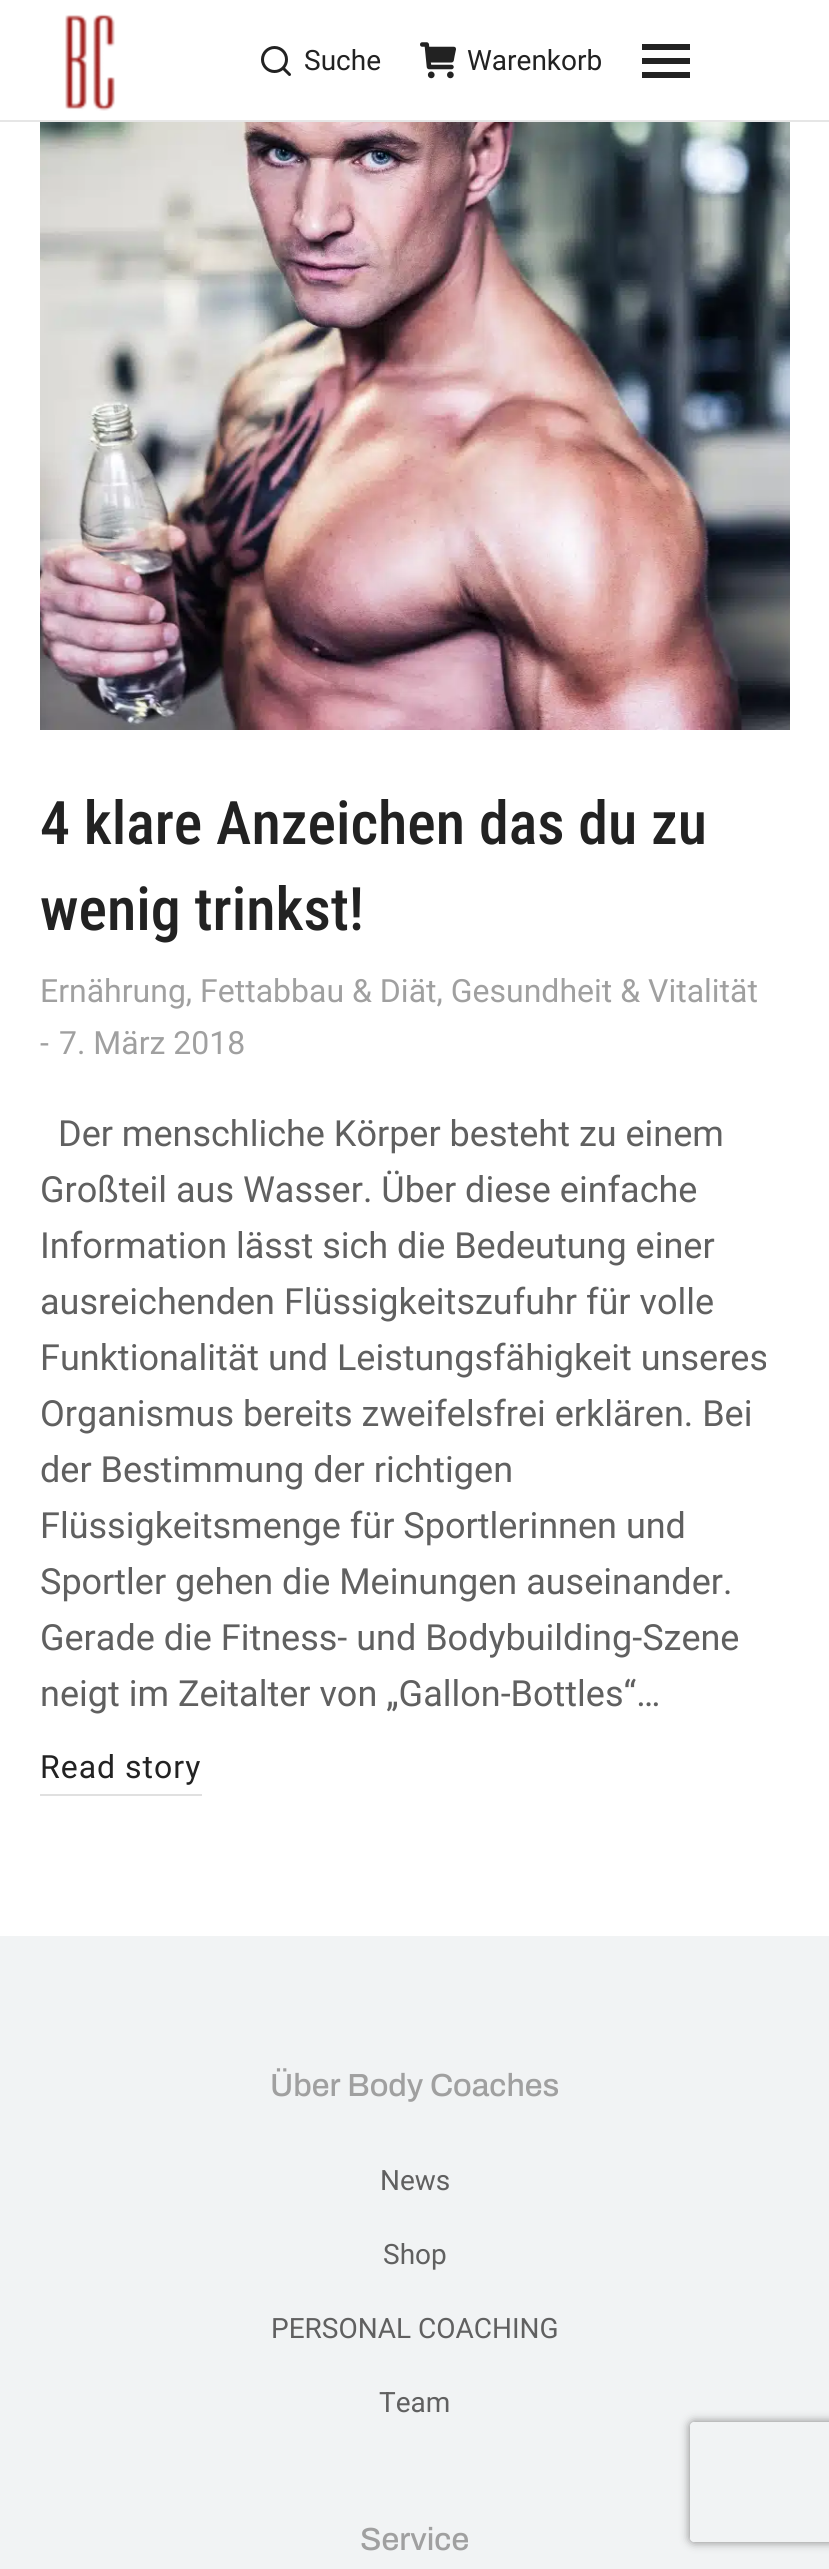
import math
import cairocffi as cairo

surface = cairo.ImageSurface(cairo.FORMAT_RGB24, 829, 2569)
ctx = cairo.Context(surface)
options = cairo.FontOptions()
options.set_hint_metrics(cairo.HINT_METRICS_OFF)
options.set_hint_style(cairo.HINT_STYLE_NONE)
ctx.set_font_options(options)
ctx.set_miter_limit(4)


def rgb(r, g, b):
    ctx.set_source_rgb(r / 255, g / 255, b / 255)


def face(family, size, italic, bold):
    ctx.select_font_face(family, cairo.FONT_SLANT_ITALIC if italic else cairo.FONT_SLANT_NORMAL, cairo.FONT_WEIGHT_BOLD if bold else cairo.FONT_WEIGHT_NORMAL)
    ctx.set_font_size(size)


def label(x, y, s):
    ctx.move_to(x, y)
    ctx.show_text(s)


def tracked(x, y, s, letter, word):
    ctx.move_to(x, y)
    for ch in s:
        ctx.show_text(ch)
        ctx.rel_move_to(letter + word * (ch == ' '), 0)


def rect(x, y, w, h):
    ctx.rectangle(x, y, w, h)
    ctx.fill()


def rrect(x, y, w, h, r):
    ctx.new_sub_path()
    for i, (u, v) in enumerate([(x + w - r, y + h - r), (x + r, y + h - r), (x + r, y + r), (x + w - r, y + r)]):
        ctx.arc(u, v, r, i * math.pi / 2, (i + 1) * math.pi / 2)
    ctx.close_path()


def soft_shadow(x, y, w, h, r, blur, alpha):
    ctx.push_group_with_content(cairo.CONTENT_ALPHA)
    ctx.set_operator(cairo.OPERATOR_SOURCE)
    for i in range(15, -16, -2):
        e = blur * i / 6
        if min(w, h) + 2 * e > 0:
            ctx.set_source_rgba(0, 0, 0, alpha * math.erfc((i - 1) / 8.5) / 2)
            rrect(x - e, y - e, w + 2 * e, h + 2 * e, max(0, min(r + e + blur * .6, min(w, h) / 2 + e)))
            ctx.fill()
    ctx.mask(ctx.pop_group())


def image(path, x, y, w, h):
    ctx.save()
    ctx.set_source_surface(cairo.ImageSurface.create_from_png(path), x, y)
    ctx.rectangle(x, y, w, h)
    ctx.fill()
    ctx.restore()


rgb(255, 255, 255)
ctx.paint()
rgb(230, 230, 230)
rect(0, 120, 829, 2)
image('image0.png', 65, 14, 50, 97)
image('image1.png', 261, 46, 30, 30)
face('Roboto', 28, 0, 0)
rgb(34, 34, 34)
label(304, 70, 'Suche')
image('image2.png', 420, 42, 36, 37)
label(467, 70, 'Warenkorb')
rect(642, 44, 48, 6)
rect(642, 58, 48, 6)
rect(642, 72, 48, 6)
image('image3.png', 40, 122, 750, 608)
face('Roboto Condensed Medium', 60, 0, 0)
label(40, 844, '4 klare Anzeichen das du zu')
label(40, 930, 'wenig trinkst!')
face('Roboto', 32, 0, 0)
rgb(160, 160, 160)
label(40, 1002, 'Ernährung, Fettabbau & Diät, Gesundheit & Vitalität')
label(40, 1054, '-')
label(59, 1054, '7. März 2018')
face('Roboto', 36, 0, 0)
rgb(96, 96, 96)
label(58, 1146, 'Der menschliche Körper besteht zu einem')
label(40, 1202, 'Großteil aus Wasser. Über diese einfache')
label(40, 1258, 'Information lässt sich die Bedeutung einer')
label(40, 1314, 'ausreichenden Flüssigkeitszufuhr für volle')
label(40, 1370, 'Funktionalität und Leistungsfähigkeit unseres')
label(40, 1426, 'Organismus bereits zweifelsfrei erklären. Bei')
label(40, 1482, 'der Bestimmung der richtigen')
label(40, 1538, 'Flüssigkeitsmenge für Sportlerinnen und')
label(40, 1594, 'Sportler gehen die Meinungen auseinander.')
label(40, 1650, 'Gerade die Fitness- und Bodybuilding-Szene')
label(40, 1706, 'neigt im Zeitalter von „Gallon-Bottles“…')
rgb(224, 224, 224)
rect(40, 1794, 162, 2)
face('Roboto', 32, 0, 0)
rgb(34, 34, 34)
tracked(40, 1778, 'Read story', 1, 0)
rgb(241, 243, 244)
rect(0, 1936, 829, 633)
face('Archivo Medium', 32, 0, 0)
rgb(160, 160, 160)
label(270, 2096, 'Über Body Coaches')
face('Roboto', 28, 0, 0)
rgb(96, 96, 96)
label(380, 2190, 'News')
label(383, 2264, 'Shop')
label(271, 2338, 'PERSONAL COACHING')
label(379, 2412, 'Team')
face('Archivo Medium', 32, 0, 0)
rgb(160, 160, 160)
label(360, 2550, 'Service')
ctx.save()
ctx.set_fill_rule(cairo.FILL_RULE_EVEN_ODD)
ctx.new_path()
ctx.move_to(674, 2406)
ctx.line_to(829, 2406)
ctx.line_to(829, 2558)
ctx.line_to(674, 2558)
ctx.close_path()
ctx.move_to(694, 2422)
ctx.line_to(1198, 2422)
ctx.curve_to(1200, 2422, 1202, 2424, 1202, 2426)
ctx.line_to(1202, 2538)
ctx.curve_to(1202, 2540, 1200, 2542, 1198, 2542)
ctx.line_to(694, 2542)
ctx.curve_to(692, 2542, 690, 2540, 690, 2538)
ctx.line_to(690, 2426)
ctx.curve_to(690, 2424, 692, 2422, 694, 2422)
ctx.close_path()
ctx.clip()
rgb(128, 128, 128)
soft_shadow(690, 2422, 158, 120, 4, 5, 1)
ctx.restore()
surface.write_to_png('render.png')
